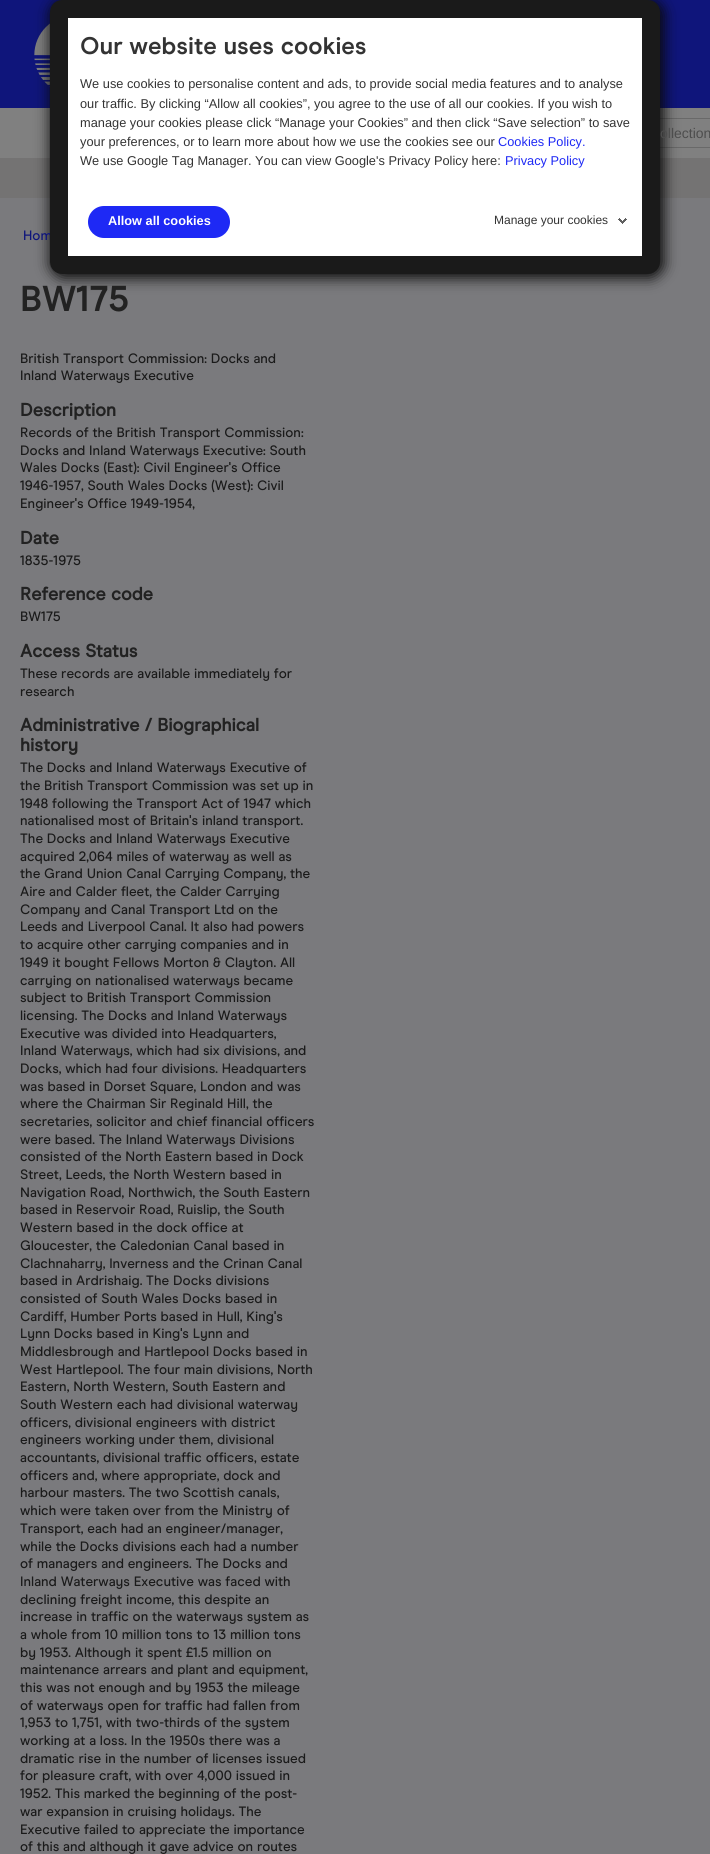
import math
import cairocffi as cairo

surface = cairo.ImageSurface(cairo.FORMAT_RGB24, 710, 1854)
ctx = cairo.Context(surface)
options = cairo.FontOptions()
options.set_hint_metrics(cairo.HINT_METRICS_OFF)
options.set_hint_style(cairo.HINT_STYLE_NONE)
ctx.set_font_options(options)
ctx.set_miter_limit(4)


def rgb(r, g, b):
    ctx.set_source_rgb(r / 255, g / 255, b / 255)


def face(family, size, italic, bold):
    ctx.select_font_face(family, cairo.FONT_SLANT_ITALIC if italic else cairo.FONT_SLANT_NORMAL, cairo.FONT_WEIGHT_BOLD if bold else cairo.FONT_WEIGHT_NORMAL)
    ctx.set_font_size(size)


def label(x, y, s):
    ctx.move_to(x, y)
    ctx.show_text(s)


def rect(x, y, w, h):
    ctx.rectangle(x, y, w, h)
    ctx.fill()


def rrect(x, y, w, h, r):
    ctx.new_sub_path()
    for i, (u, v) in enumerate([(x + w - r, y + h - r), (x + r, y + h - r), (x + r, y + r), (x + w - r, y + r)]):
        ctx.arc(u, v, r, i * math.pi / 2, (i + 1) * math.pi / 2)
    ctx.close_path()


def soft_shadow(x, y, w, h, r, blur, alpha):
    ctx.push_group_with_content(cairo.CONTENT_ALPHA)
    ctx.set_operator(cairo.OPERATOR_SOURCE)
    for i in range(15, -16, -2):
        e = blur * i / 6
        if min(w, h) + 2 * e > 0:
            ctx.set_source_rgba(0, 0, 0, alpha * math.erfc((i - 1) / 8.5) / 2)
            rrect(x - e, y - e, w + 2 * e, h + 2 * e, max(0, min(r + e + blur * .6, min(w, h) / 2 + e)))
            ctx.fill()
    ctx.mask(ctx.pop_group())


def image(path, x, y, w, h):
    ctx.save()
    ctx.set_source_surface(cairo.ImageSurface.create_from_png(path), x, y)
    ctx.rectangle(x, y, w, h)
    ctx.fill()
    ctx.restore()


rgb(122, 122, 125)
ctx.paint()
rgb(15, 21, 123)
rect(0, 0, 710, 108)
image('image1.png', 34, 23, 16, 64)
rgb(128, 128, 128)
rect(0, 108, 710, 50)
ctx.rectangle(574.5, 118.5, 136, 29)
rgb(105, 105, 105)
ctx.set_line_width(1)
ctx.stroke()
rgb(116, 115, 115)
rect(0, 158, 710, 40)
rgb(9, 9, 9)
soft_shadow(50, 0, 614, 278, 14, 7, 1)
face('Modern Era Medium', 13.6, 0, 0)
rgb(15, 21, 123)
label(23, 240, 'Hom')
rrect(59, 9, 592, 256, 3)
rgb(26, 26, 26)
ctx.set_line_width(18)
ctx.stroke()
rgb(255, 255, 255)
rect(68, 18, 574, 238)
face('Modern Era', 24, 0, 1)
rgb(51, 51, 51)
label(80, 54, 'Our website uses cookies')
face('Liberation Sans', 12.8, 0, 0)
label(80, 88, 'We use cookies to personalise content and ads, to provide social media features and to analyse')
label(80, 108, 'our traffic. By clicking “Allow all cookies”, you agree to the use of all our cookies. If you wish to')
label(80, 127, 'manage your cookies please click “Manage your Cookies” and then click “Save selection” to save')
label(80, 146, 'your preferences, or to learn more about how we use the cookies see our')
rgb(30, 41, 245)
label(498, 146, 'Cookies Policy.')
rgb(51, 51, 51)
label(80, 165, 'We use Google Tag Manager. You can view Google\'s Privacy Policy here:')
rgb(30, 41, 245)
label(505, 165, 'Privacy Policy')
rrect(88, 206, 142, 32, 16)
ctx.fill()
face('Liberation Sans', 12.75, 0, 1)
rgb(255, 255, 255)
label(108, 225, 'Allow all cookies')
image('image0.png', 618, 218, 9, 6)
face('Liberation Sans', 12, 0, 0)
rgb(51, 51, 51)
label(494, 224, 'Manage your cookies')
face('Liberation Sans', 14, 0, 0)
rgb(77, 77, 77)
label(660, 138, 'ollection')
face('Modern Era', 36, 0, 1)
rgb(34, 34, 34)
label(20, 311, 'BW175')
face('Modern Era Medium', 13.6, 0, 0)
rgb(26, 26, 26)
label(20, 363, 'British Transport Commission: Docks and')
label(20, 380, 'Inland Waterways Executive')
face('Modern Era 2', 18.1, 0, 1)
rgb(34, 34, 34)
label(20, 416, 'Description')
face('Modern Era Medium', 13.6, 0, 0)
rgb(26, 26, 26)
label(20, 437, 'Records of the British Transport Commission:')
label(20, 455, 'Docks and Inland Waterways Executive: South')
label(20, 472, 'Wales Docks (East): Civil Engineer\'s Office')
label(20, 490, '1946-1957, South Wales Docks (West): Civil')
label(20, 508, 'Engineer\'s Office 1949-1954,')
face('Modern Era 2', 18.1, 0, 1)
rgb(34, 34, 34)
label(20, 544, 'Date')
face('Modern Era Medium', 13.6, 0, 0)
rgb(26, 26, 26)
label(20, 565, '1835-1975')
face('Modern Era 2', 18.1, 0, 1)
rgb(34, 34, 34)
label(20, 600, 'Reference code')
face('Modern Era Medium', 13.6, 0, 0)
rgb(26, 26, 26)
label(20, 621, 'BW175')
face('Modern Era 2', 18.1, 0, 1)
rgb(34, 34, 34)
label(20, 657, 'Access Status')
face('Modern Era Medium', 13.6, 0, 0)
rgb(26, 26, 26)
label(20, 678, 'These records are available immediately for')
label(20, 696, 'research')
face('Modern Era 2', 18.1, 0, 1)
rgb(34, 34, 34)
label(20, 731, 'Administrative / Biographical')
label(20, 751, 'history')
face('Modern Era Medium', 13.6, 0, 0)
rgb(26, 26, 26)
label(20, 772, 'The Docks and Inland Waterways Executive of')
label(20, 790, 'the British Transport Commission was set up in')
label(20, 808, '1948 following the Transport Act of 1947 which')
label(20, 825, 'nationalised most of Britain\'s inland transport.')
label(20, 843, 'The Docks and Inland Waterways Executive')
label(20, 861, 'acquired 2,064 miles of waterway as well as')
label(20, 878, 'the Grand Union Canal Carrying Company, the')
label(20, 896, 'Aire and Calder fleet, the Calder Carrying')
label(20, 914, 'Company and Canal Transport Ltd on the')
label(20, 931, 'Leeds and Liverpool Canal. It also had powers')
label(20, 949, 'to acquire other carrying companies and in')
label(20, 967, '1949 it bought Fellows Morton & Clayton. All')
label(20, 985, 'carrying on nationalised waterways became')
label(20, 1002, 'subject to British Transport Commission')
label(20, 1020, 'licensing. The Docks and Inland Waterways')
label(20, 1038, 'Executive was divided into Headquarters,')
label(20, 1055, 'Inland Waterways, which had six divisions, and')
label(20, 1073, 'Docks, which had four divisions. Headquarters')
label(20, 1091, 'was based in Dorset Square, London and was')
label(20, 1108, 'where the Chairman Sir Reginald Hill, the')
label(20, 1126, 'secretaries, solicitor and chief financial officers')
label(20, 1144, 'were based. The Inland Waterways Divisions')
label(20, 1161, 'consisted of the North Eastern based in Dock')
label(20, 1179, 'Street, Leeds, the North Western based in')
label(20, 1197, 'Navigation Road, Northwich, the South Eastern')
label(20, 1214, 'based in Reservoir Road, Ruislip, the South')
label(20, 1232, 'Western based in the dock office at')
label(20, 1250, 'Gloucester, the Caledonian Canal based in')
label(20, 1268, 'Clachnaharry, Inverness and the Crinan Canal')
label(20, 1285, 'based in Ardrishaig. The Docks divisions')
label(20, 1303, 'consisted of South Wales Docks based in')
label(20, 1321, 'Cardiff, Humber Ports based in Hull, King\'s')
label(20, 1338, 'Lynn Docks based in King\'s Lynn and')
label(20, 1356, 'Middlesbrough and Hartlepool Docks based in')
label(20, 1374, 'West Hartlepool. The four main divisions, North')
label(20, 1391, 'Eastern, North Western, South Eastern and')
label(20, 1409, 'South Western each had divisional waterway')
label(20, 1427, 'officers, divisional engineers with district')
label(20, 1444, 'engineers working under them, divisional')
label(20, 1462, 'accountants, divisional traffic officers, estate')
label(20, 1480, 'officers and, where appropriate, dock and')
label(20, 1497, 'harbour masters. The two Scottish canals,')
label(20, 1515, 'which were taken over from the Ministry of')
label(20, 1533, 'Transport, each had an engineer/manager,')
label(20, 1551, 'while the Docks divisions each had a number')
label(20, 1568, 'of managers and engineers. The Docks and')
label(20, 1586, 'Inland Waterways Executive was faced with')
label(20, 1604, 'declining freight income, this despite an')
label(20, 1621, 'increase in traffic on the waterways system as')
label(20, 1639, 'a whole from 10 million tons to 13 million tons')
label(20, 1657, 'by 1953. Although it spent £1.5 million on')
label(20, 1674, 'maintenance arrears and plant and equipment,')
label(20, 1692, 'this was not enough and by 1953 the mileage')
label(20, 1710, 'of waterways open for traffic had fallen from')
label(20, 1727, '1,953 to 1,751, with two-thirds of the system')
label(20, 1745, 'working at a loss. In the 1950s there was a')
label(20, 1763, 'dramatic rise in the number of licenses issued')
label(20, 1780, 'for pleasure craft, with over 4,000 issued in')
label(20, 1798, '1952. This marked the beginning of the post-')
label(20, 1816, 'war expansion in cruising holidays. The')
label(20, 1834, 'Executive failed to appreciate the importance')
label(20, 1851, 'of this and although it gave advice on routes')
surface.write_to_png('render.png')
